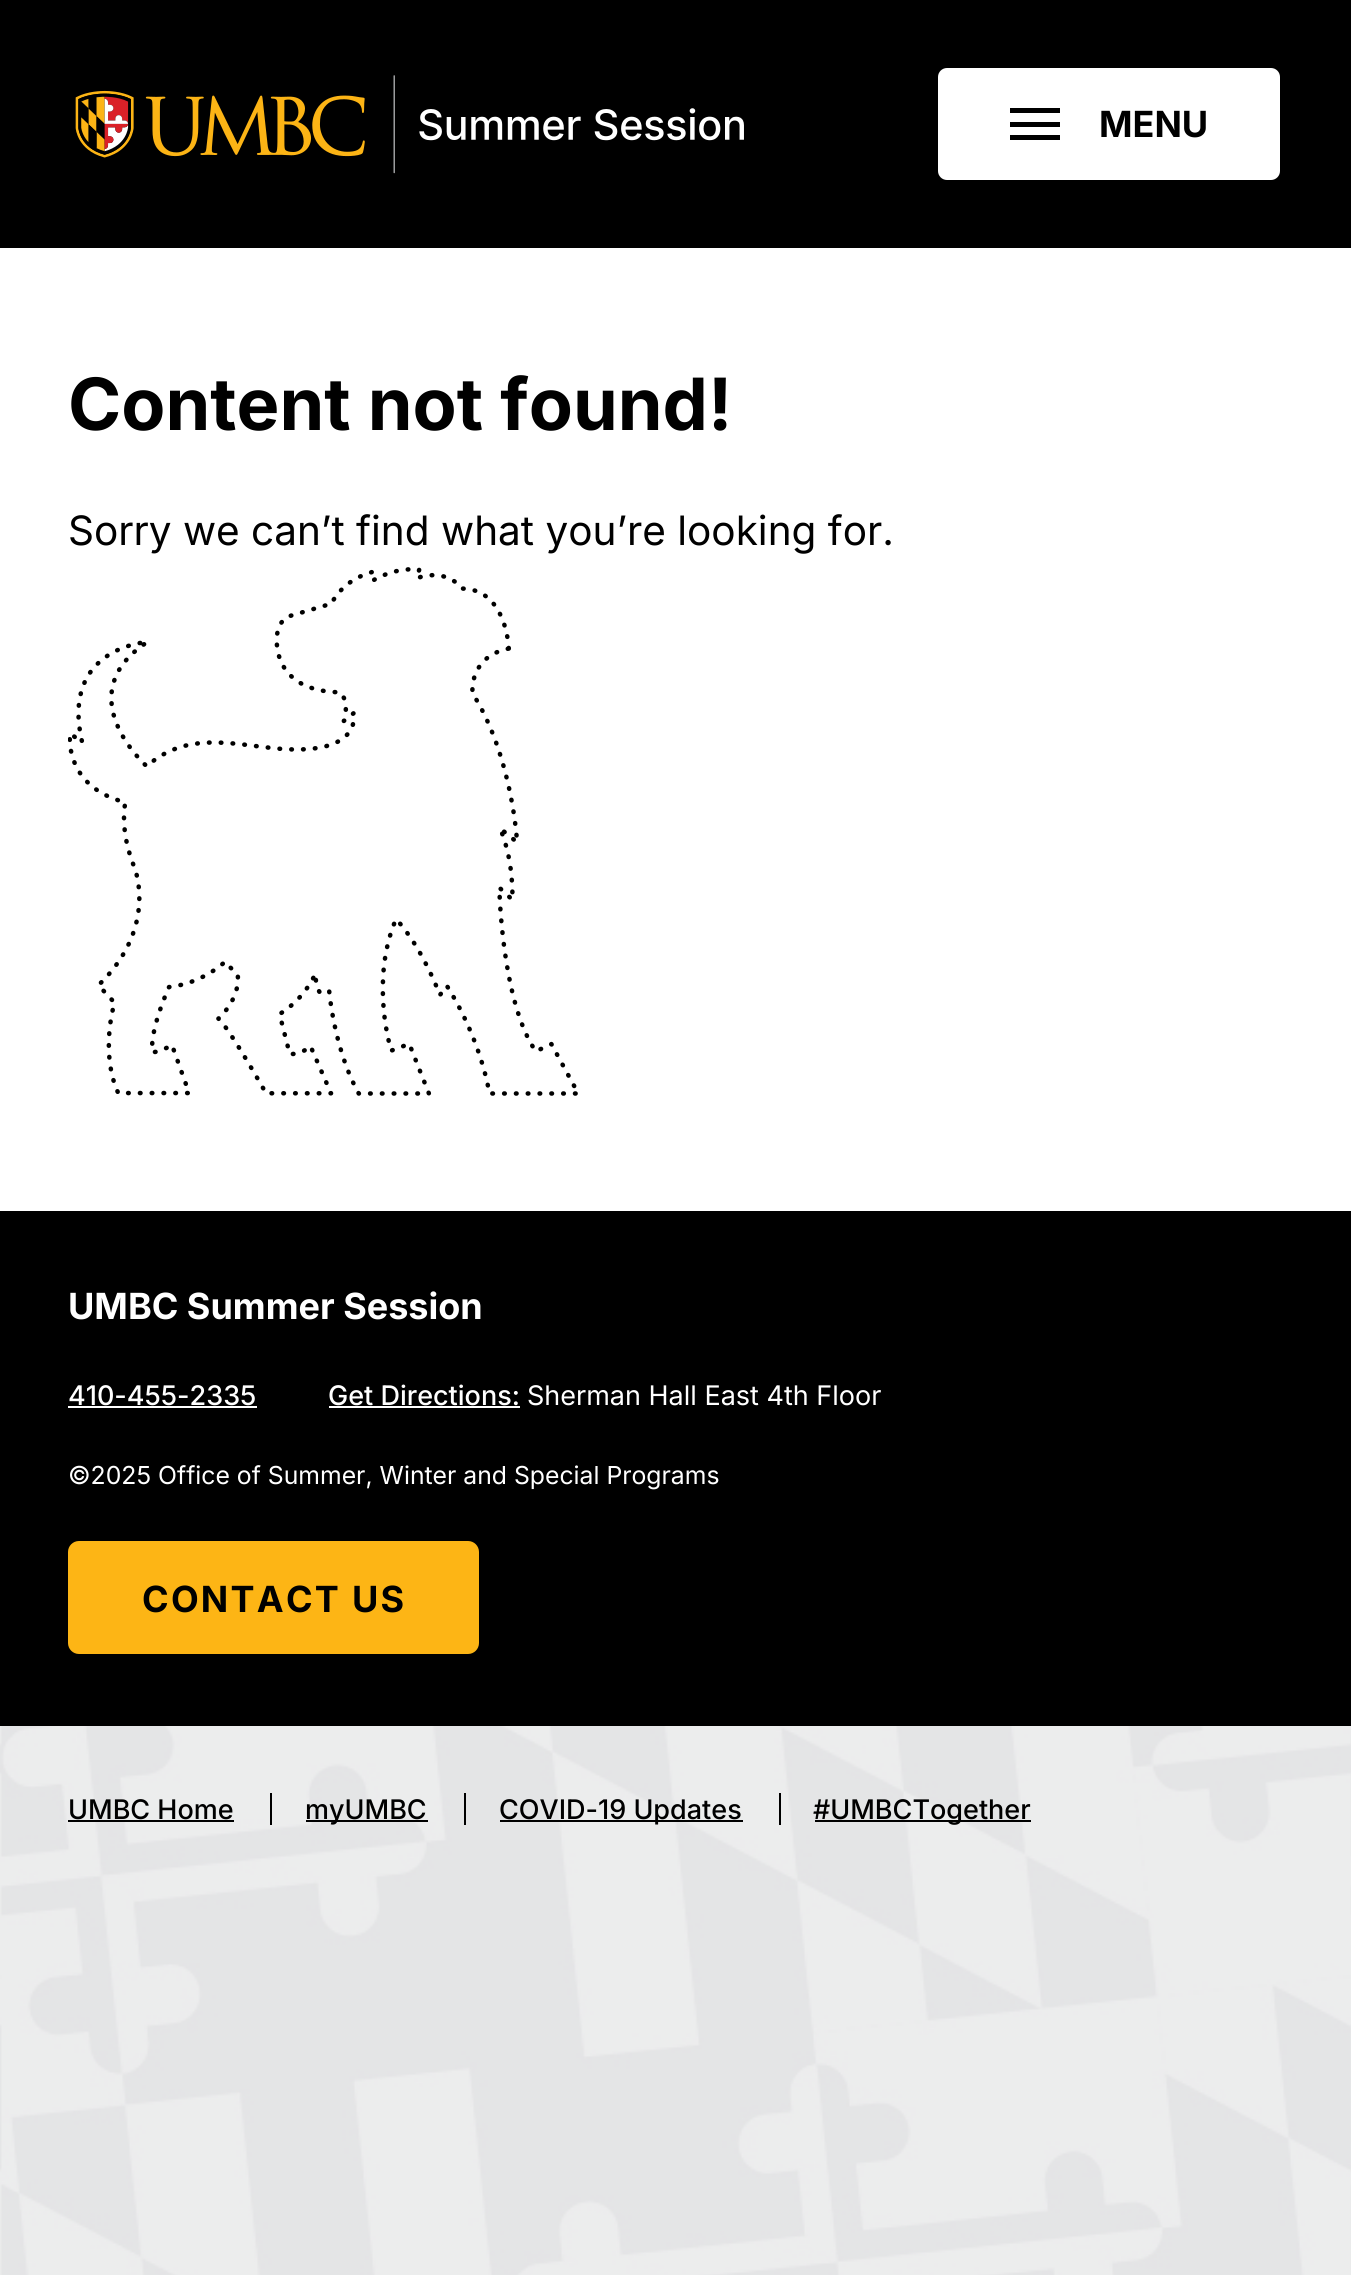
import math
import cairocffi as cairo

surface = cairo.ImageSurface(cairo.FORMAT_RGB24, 1351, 2275)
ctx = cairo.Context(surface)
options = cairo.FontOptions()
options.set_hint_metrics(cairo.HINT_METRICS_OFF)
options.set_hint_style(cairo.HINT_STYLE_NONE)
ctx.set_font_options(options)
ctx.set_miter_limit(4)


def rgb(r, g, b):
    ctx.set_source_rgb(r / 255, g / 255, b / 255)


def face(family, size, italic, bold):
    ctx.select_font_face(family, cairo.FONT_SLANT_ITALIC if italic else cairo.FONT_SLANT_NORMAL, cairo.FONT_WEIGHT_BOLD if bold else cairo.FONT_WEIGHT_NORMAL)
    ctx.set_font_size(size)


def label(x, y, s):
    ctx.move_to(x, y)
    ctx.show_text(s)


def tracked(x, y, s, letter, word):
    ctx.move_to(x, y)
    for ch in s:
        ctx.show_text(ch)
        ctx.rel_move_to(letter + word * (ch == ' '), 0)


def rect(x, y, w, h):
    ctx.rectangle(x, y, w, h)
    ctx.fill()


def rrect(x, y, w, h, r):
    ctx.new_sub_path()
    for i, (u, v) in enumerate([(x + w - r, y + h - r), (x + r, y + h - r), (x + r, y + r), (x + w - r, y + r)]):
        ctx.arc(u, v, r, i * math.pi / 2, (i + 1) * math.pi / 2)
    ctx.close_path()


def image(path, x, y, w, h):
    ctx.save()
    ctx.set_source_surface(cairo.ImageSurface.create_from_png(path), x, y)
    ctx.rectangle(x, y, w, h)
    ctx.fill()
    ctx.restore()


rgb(255, 255, 255)
ctx.paint()
image('image0.png', 0, 1726, 1351, 549)
rgb(0, 0, 0)
rect(0, 0, 1351, 248)
image('image1.png', 75, 75, 669, 99)
rgb(255, 255, 255)
rrect(938, 68, 342, 112, 9)
ctx.fill()
rgb(0, 0, 0)
rect(1010, 122, 50, 5)
rect(1010, 108, 50, 5)
rect(1010, 135, 50, 5)
face('Inter', 36, 0, 1)
label(1099, 137, 'MENU')
face('Inter', 72, 0, 1)
label(68, 430, 'Content not found!')
face('Inter', 40.5, 0, 0)
label(68, 545, 'Sorry we can’t find what you’re looking for.')
image('image2.png', 68, 567, 510, 529)
rect(0, 1211, 1351, 515)
face('Inter', 36, 0, 1)
rgb(255, 255, 255)
label(68, 1319, 'UMBC Summer Session')
face('Inter Medium', 27, 0, 0)
label(68, 1405, '410-455-2335')
rect(68, 1406, 189, 2)
label(328, 1405, 'Get Directions:')
rect(329, 1406, 191, 2)
face('Inter', 27, 0, 0)
label(527, 1405, 'Sherman Hall East 4th Floor')
face('Inter', 24.75, 0, 0)
label(68, 1484, '©2025 Office of Summer, Winter and Special Programs')
rgb(253, 181, 21)
rrect(68, 1541, 411, 113, 11)
ctx.fill()
face('Inter', 36, 0, 1)
rgb(0, 0, 0)
tracked(142, 1612, 'CONTACT US', 2.25, 0)
face('Inter Medium', 27, 0, 0)
label(68, 1819, 'UMBC Home')
rect(68, 1820, 166, 2)
rect(270, 1793, 2, 32)
rect(306, 1820, 122, 2)
label(305, 1819, 'myUMBC')
rect(464, 1793, 2, 32)
rect(500, 1820, 243, 2)
label(499, 1819, 'COVID-19 Updates')
rect(779, 1793, 2, 32)
rect(815, 1820, 216, 2)
label(813, 1819, '#UMBCTogether')
surface.write_to_png('render.png')
